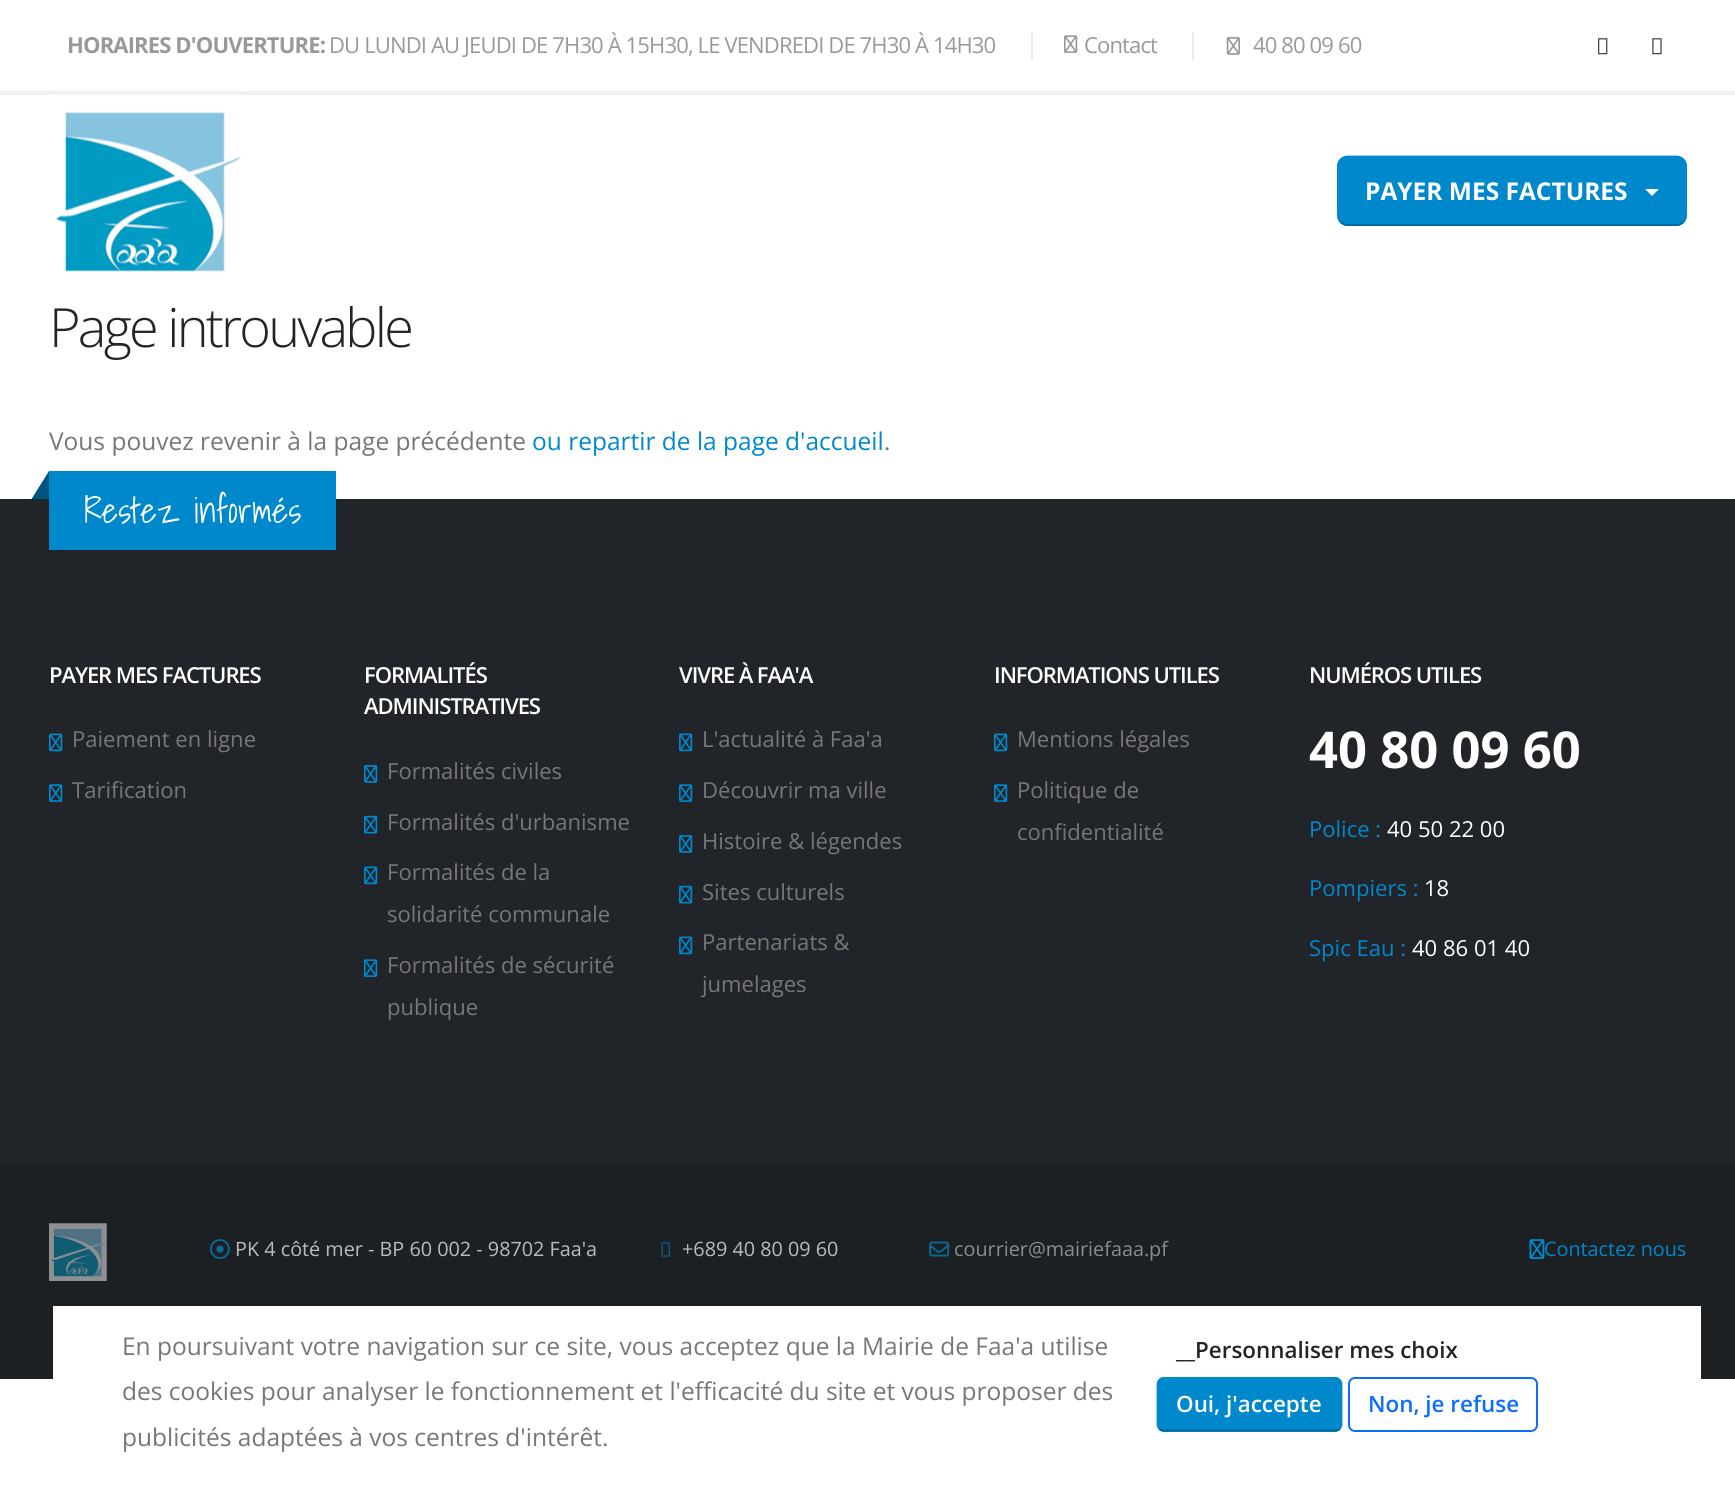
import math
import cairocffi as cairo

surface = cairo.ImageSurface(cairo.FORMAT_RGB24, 1735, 1512)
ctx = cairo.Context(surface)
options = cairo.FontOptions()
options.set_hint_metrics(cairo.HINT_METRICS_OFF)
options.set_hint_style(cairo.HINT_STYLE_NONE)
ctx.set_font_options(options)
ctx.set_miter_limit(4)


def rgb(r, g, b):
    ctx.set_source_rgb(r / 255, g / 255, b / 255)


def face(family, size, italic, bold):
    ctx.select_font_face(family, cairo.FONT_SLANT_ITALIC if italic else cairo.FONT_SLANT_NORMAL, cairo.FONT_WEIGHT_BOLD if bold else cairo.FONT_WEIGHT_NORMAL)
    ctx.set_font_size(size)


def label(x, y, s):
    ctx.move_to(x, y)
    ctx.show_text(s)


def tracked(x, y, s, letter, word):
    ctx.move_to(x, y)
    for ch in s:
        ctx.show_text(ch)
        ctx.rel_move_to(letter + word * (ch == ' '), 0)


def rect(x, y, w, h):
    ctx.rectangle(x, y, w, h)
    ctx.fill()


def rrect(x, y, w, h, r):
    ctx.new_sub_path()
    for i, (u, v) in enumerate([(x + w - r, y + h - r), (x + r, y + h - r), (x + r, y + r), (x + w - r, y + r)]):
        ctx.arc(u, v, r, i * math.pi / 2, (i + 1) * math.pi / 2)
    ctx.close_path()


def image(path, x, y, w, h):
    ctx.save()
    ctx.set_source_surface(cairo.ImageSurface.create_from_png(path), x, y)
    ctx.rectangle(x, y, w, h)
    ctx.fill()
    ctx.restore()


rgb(255, 255, 255)
ctx.paint()
rgb(240, 240, 240)
rect(0, 91, 1735, 4)
face('Open Sans', 22.05, 0, 1)
rgb(153, 153, 153)
tracked(67, 53, 'HORAIRES D\'OUVERTURE:', -0.88, 0)
face('Open Sans', 22.05, 0, 0)
tracked(329, 53, 'DU LUNDI AU JEUDI DE 7H30 À 15H30, LE VENDREDI DE 7H30 À 14H30', -0.88, 0)
rgb(235, 235, 235)
rect(1031, 32, 2, 28)
image('image0.png', 1064, 35, 14, 18)
rgb(153, 153, 153)
tracked(1084, 53, 'Contact', -0.88, 0)
rgb(235, 235, 235)
rect(1192, 32, 2, 28)
image('image1.png', 1226, 37, 14, 18)
rgb(153, 153, 153)
tracked(1253, 53, '40 80 09 60', -0.88, 0)
image('image2.png', 1598, 38, 10, 17)
image('image3.png', 1652, 38, 10, 17)
image('image4.png', 49, 94, 193, 178)
rgb(0, 136, 204)
rrect(1337, 156, 350, 70, 11)
ctx.fill()
ctx.new_path()
ctx.move_to(1683.5, 222)
ctx.curve_to(1681.5, 224, 1679, 225, 1676.5, 225)
ctx.line_to(1347.5, 225)
ctx.curve_to(1345, 225, 1342.5, 224, 1340.5, 222)
rgb(0, 102, 153)
ctx.set_line_width(1.8)
ctx.stroke()
ctx.new_path()
ctx.move_to(1340.5, 222)
ctx.curve_to(1339, 220.5, 1338, 218, 1338, 215)
ctx.line_to(1338, 166)
ctx.curve_to(1338, 163.5, 1339, 161, 1340.5, 159.5)
ctx.curve_to(1342.5, 157.5, 1345, 156.5, 1347.5, 156.5)
ctx.line_to(1676.5, 156.5)
ctx.curve_to(1679, 156.5, 1681.5, 157.5, 1683.5, 159.5)
ctx.curve_to(1685, 161, 1686, 163.5, 1686, 166)
ctx.line_to(1686, 215)
ctx.curve_to(1686, 218, 1685, 220.5, 1683.5, 222)
rgb(0, 136, 204)
ctx.stroke()
face('Open Sans', 24.5, 0, 1)
rgb(255, 255, 255)
label(1365, 200, 'PAYER MES FACTURES')
ctx.new_path()
ctx.move_to(1645, 189)
ctx.line_to(1659, 189)
ctx.line_to(1652, 196)
ctx.close_path()
ctx.fill()
face('Open Sans Light', 54, 0, 0)
rgb(33, 37, 41)
tracked(49, 347, 'Page introuvable', -2.75, 0)
face('Open Sans', 24.5, 0, 0)
rgb(119, 119, 119)
label(49, 450, 'Vous pouvez revenir à la page précédente')
rgb(0, 136, 204)
label(532, 450, 'ou repartir de la page d\'accueil')
rgb(119, 119, 119)
label(884, 450, '.')
rgb(33, 37, 41)
rect(0, 499, 1735, 665)
rgb(0, 136, 204)
rect(49, 471, 287, 79)
rgb(0, 85, 128)
ctx.new_path()
ctx.move_to(49, 471)
ctx.line_to(49, 499)
ctx.line_to(31.5, 499)
ctx.close_path()
ctx.fill()
face('Shadows Into Light Light', 35.25, 0, 0)
rgb(255, 255, 255)
label(84, 523, 'Restez informés')
face('Open Sans SemiBold', 22.05, 0, 0)
tracked(49, 683, 'PAYER MES FACTURES', -1.1, 0)
image('image5.png', 49, 733, 14, 19)
face('Open Sans', 22.05, 0, 0)
rgb(119, 119, 119)
label(72, 747, 'Paiement en ligne')
image('image6.png', 49, 784, 14, 18)
label(72, 798, 'Tarification')
face('Open Sans SemiBold', 22.05, 0, 0)
rgb(255, 255, 255)
tracked(364, 683, 'FORMALITÉS', -1.1, 0)
tracked(364, 714, 'ADMINISTRATIVES', -1.1, 0)
image('image7.png', 364, 765, 14, 18)
face('Open Sans', 22.05, 0, 0)
rgb(119, 119, 119)
label(387, 779, 'Formalités civiles')
image('image8.png', 364, 815, 14, 19)
label(387, 830, 'Formalités d\'urbanisme')
image('image5.png', 364, 866, 14, 19)
label(387, 880, 'Formalités de la')
label(387, 922, 'solidarité communale')
image('image6.png', 364, 959, 14, 18)
label(387, 973, 'Formalités de sécurité')
label(387, 1015, 'publique')
face('Open Sans SemiBold', 22.05, 0, 0)
rgb(255, 255, 255)
tracked(679, 683, 'VIVRE À FAA\'A', -1.1, 0)
image('image5.png', 679, 733, 14, 19)
face('Open Sans', 22.05, 0, 0)
rgb(119, 119, 119)
label(702, 747, 'L\'actualité à Faa\'a')
image('image6.png', 679, 784, 14, 18)
label(702, 798, 'Découvrir ma ville')
image('image7.png', 679, 835, 14, 18)
label(702, 849, 'Histoire & légendes')
image('image8.png', 679, 885, 14, 19)
label(702, 900, 'Sites culturels')
image('image5.png', 679, 936, 14, 19)
label(702, 950, 'Partenariats &')
label(702, 992, 'jumelages')
face('Open Sans SemiBold', 22.05, 0, 0)
rgb(255, 255, 255)
tracked(994, 683, 'INFORMATIONS UTILES', -1.1, 0)
image('image5.png', 994, 733, 14, 19)
face('Open Sans', 22.05, 0, 0)
rgb(119, 119, 119)
label(1017, 747, 'Mentions légales')
image('image6.png', 994, 784, 14, 18)
label(1017, 798, 'Politique de')
label(1017, 840, 'confidentialité')
face('Open Sans SemiBold', 22.05, 0, 0)
rgb(255, 255, 255)
tracked(1309, 683, 'NUMÉROS UTILES', -1.1, 0)
face('Open Sans', 50.75, 0, 1)
label(1309, 768, '40 80 09 60')
face('Open Sans', 22.05, 0, 0)
rgb(0, 136, 204)
label(1309, 837, 'Police :')
rgb(255, 255, 255)
label(1387, 837, '40 50 22 00')
rgb(0, 136, 204)
label(1309, 896, 'Pompiers :')
rgb(255, 255, 255)
label(1424, 896, '18')
rgb(0, 136, 204)
label(1309, 956, 'Spic Eau :')
rgb(255, 255, 255)
label(1412, 956, '40 86 01 40')
rgb(28, 32, 35)
rect(0, 1164, 1735, 215)
image('image9.png', 49, 1223, 58, 58)
image('image10.png', 210, 1239, 20, 20)
face('Open Sans', 19.8, 0, 0)
rgb(187, 188, 189)
label(235, 1256, 'PK 4 côté mer - BP 60 002 - 98702 Faa\'a')
image('image11.png', 661, 1242, 9, 15)
label(682, 1256, '+689 40 80 09 60')
image('image12.png', 929, 1241, 21, 16)
rgb(139, 141, 143)
label(954, 1256, 'courrier@mairiefaaa.pf')
image('image13.png', 1529, 1239, 16, 20)
rgb(0, 136, 204)
label(1544, 1256, 'Contactez nous')
rgb(255, 255, 255)
rect(53, 1306, 1648, 73)
face('Open Sans', 24.5, 0, 0)
rgb(119, 119, 119)
label(122, 1355, 'En poursuivant votre navigation sur ce site, vous acceptez que la Mairie de Faa\'a utilise')
label(122, 1400, 'des cookies pour analyser le fonctionnement et l\'efficacité du site et vous proposer des')
label(122, 1446, 'publicités adaptées à vos centres d\'intérêt.')
face('Open Sans SemiBold', 22.4, 0, 0)
rgb(33, 37, 41)
label(1176, 1358, '__Personnaliser mes choix')
rgb(0, 136, 204)
rrect(1157, 1377, 185, 55, 7)
ctx.fill()
ctx.new_path()
ctx.move_to(1339.5, 1429)
ctx.curve_to(1338.5, 1430, 1337, 1430.5, 1335, 1430.5)
ctx.line_to(1164, 1430.5)
ctx.curve_to(1162, 1430.5, 1160.5, 1430, 1159.5, 1429)
rgb(0, 102, 153)
ctx.stroke()
ctx.new_path()
ctx.move_to(1159.5, 1429)
ctx.curve_to(1158.5, 1427.5, 1157.5, 1426, 1157.5, 1424.5)
ctx.line_to(1157.5, 1384)
ctx.curve_to(1157.5, 1382.5, 1158.5, 1381, 1159.5, 1380)
ctx.curve_to(1160.5, 1379, 1162, 1378, 1164, 1378)
ctx.line_to(1335, 1378)
ctx.curve_to(1337, 1378, 1338.5, 1379, 1339.5, 1380)
ctx.curve_to(1340.5, 1381, 1341.5, 1382.5, 1341.5, 1384)
ctx.line_to(1341.5, 1424.5)
ctx.curve_to(1341.5, 1426, 1340.5, 1427.5, 1339.5, 1429)
rgb(0, 136, 204)
ctx.stroke()
rgb(255, 255, 255)
label(1176, 1412, 'Oui, j\'accepte')
rrect(1349, 1378, 188, 53, 6)
rgb(13, 110, 253)
ctx.set_line_width(2)
ctx.stroke()
label(1368, 1412, 'Non, je refuse')
surface.write_to_png('render.png')
